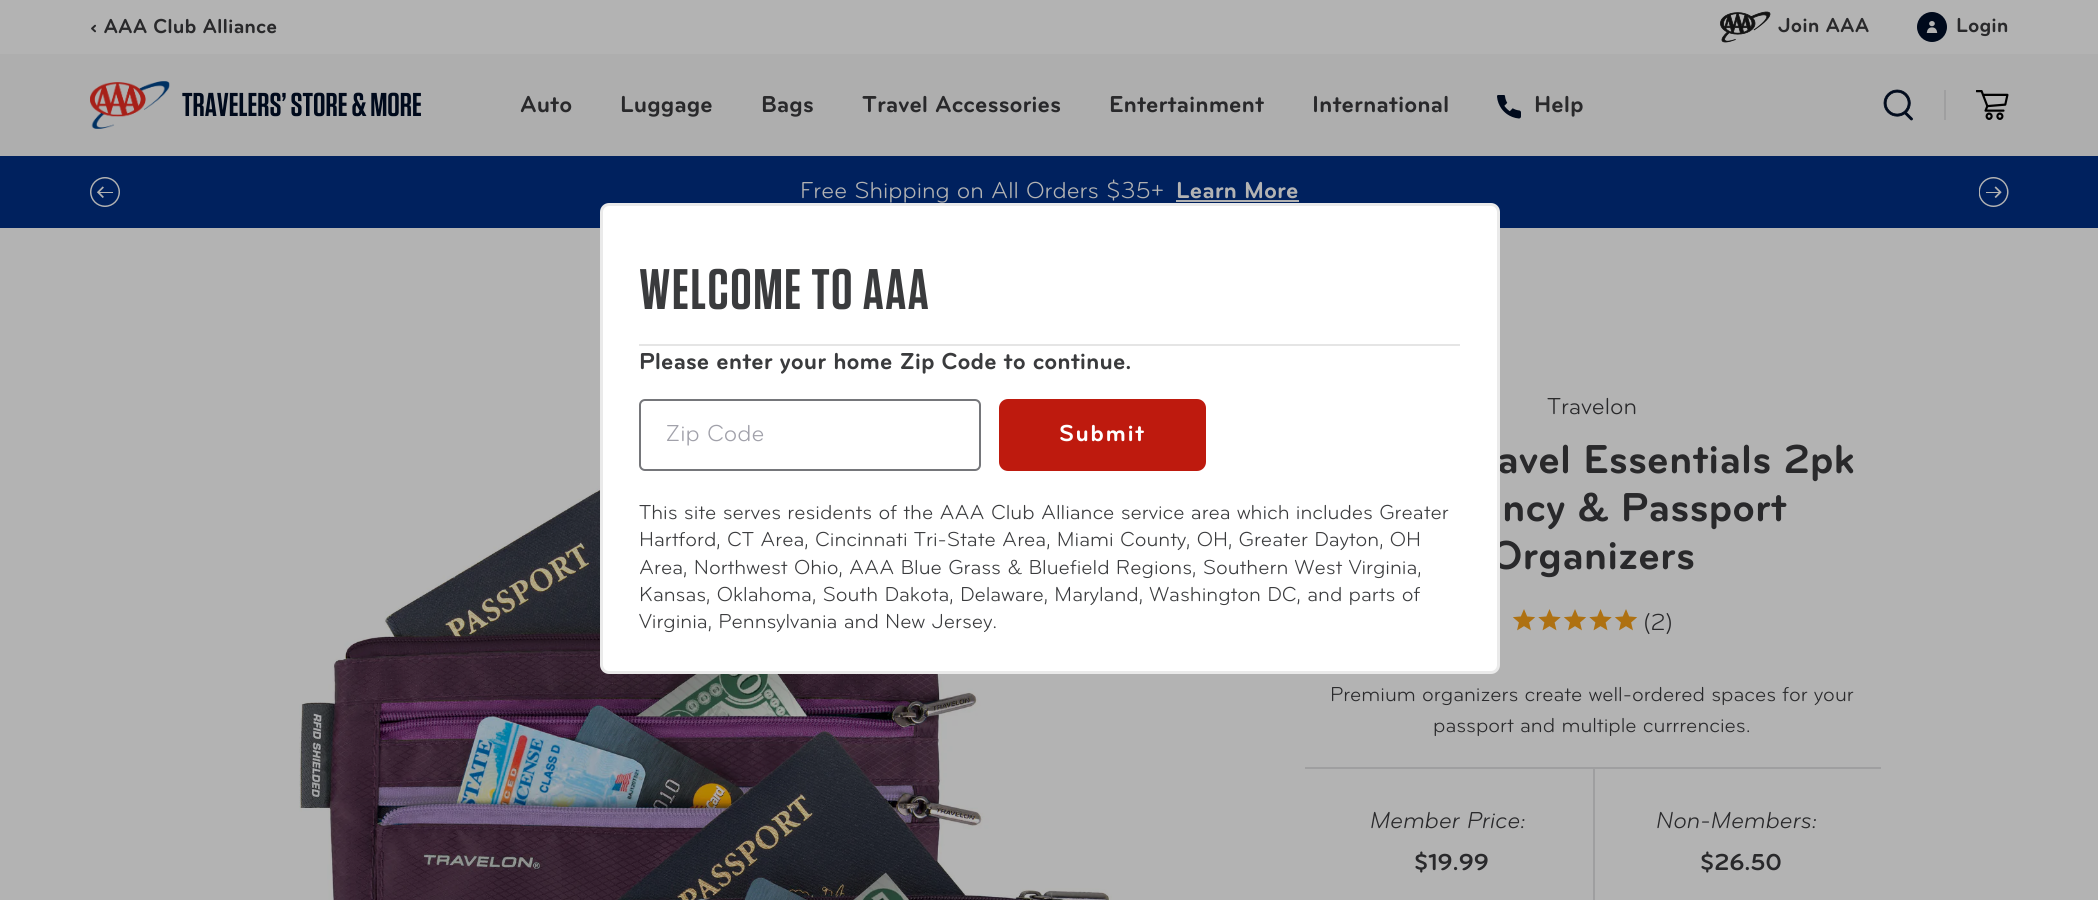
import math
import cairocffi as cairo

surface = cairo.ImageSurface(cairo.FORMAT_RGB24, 2098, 900)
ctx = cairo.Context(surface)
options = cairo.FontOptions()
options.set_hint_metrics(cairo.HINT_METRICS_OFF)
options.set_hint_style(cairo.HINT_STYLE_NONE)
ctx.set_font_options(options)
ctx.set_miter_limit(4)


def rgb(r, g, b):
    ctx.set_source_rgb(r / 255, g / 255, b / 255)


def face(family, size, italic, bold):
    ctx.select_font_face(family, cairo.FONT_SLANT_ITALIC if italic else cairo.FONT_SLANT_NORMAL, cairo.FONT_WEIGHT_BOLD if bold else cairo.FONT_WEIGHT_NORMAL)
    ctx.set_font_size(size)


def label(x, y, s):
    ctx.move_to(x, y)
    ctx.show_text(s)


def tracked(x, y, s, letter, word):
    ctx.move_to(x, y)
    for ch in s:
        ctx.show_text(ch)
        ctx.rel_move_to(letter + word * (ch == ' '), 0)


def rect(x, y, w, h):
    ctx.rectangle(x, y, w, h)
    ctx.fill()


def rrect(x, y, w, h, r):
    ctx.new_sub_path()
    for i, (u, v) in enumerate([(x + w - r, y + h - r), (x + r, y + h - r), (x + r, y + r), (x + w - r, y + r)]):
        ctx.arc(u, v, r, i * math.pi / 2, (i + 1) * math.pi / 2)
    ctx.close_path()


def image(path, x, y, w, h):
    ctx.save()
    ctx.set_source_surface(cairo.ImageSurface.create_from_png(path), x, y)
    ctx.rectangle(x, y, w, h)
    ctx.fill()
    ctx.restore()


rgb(179, 179, 179)
ctx.paint()
face('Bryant', 21, 0, 1)
rgb(41, 41, 43)
label(90, 33, '‹ AAA Club Alliance')
image('image0.png', 1720, 11, 51, 32)
label(1778, 32, 'Join AAA')
image('image1.png', 1917, 12, 30, 30)
label(1956, 32, 'Login')
rgb(174, 174, 174)
rect(0, 54, 2098, 102)
image('image2.png', 90, 81, 80, 48)
face('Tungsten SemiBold', 33, 0, 0)
rgb(0, 10, 28)
label(182, 116, 'TRAVELERS’ STORE & MORE')
face('Bryant', 24, 0, 1)
rgb(41, 41, 43)
label(520, 112, 'Auto')
label(620, 112, 'Luggage')
label(761, 112, 'Bags')
label(862, 112, 'Travel Accessories')
label(1109, 112, 'Entertainment')
label(1312, 112, 'International')
image('image3.png', 1497, 95, 24, 24)
label(1534, 112, 'Help')
image('image4.png', 1883, 89, 30, 32)
rgb(159, 159, 160)
rect(1944, 90, 2, 30)
image('image5.png', 1976, 90, 33, 30)
rgb(0, 33, 94)
rect(0, 156, 2098, 72)
image('image6.png', 90, 177, 30, 30)
face('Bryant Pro', 24, 0, 0)
rgb(179, 179, 179)
label(800, 198, 'Free Shipping on All Orders $35+')
face('Bryant', 24, 0, 1)
label(1176, 198, 'Learn More')
rect(1176, 200, 123, 2)
image('image7.png', 1979, 177, 30, 30)
image('image8.png', 299, 483, 813, 417)
face('Bryant', 42, 0, 1)
rgb(41, 41, 43)
label(1497, 473, 'avel Essentials 2pk')
label(1490, 569, 'Organizers')
rgb(255, 255, 255)
rrect(601.5, 204.5, 897, 468, 7.5)
ctx.fill_preserve()
rgb(234, 234, 234)
ctx.set_line_width(3)
ctx.stroke()
rgb(229, 229, 229)
rect(639, 344, 821, 2)
face('Tungsten SemiBold', 57, 0, 0)
rgb(58, 59, 61)
tracked(639, 309, 'WELCOME TO AAA', 1.5, 0)
face('Bryant', 24, 0, 1)
label(639, 369, 'Please enter your home Zip Code to continue.')
rrect(640, 400, 340, 70, 5)
rgb(117, 118, 122)
ctx.set_line_width(2)
ctx.stroke()
face('Bryant Pro', 24, 0, 0)
rgb(161, 161, 170)
label(665, 441, 'Zip Code')
rgb(190, 26, 14)
rrect(999, 399, 207, 72, 9)
ctx.fill()
face('Bryant', 24, 0, 1)
rgb(255, 255, 255)
tracked(1059, 441, 'Submit', 1.5, 0)
face('Bryant Pro', 21, 0, 0)
rgb(58, 59, 61)
label(639, 519, 'This site serves residents of the AAA Club Alliance service area which includes Greater')
label(639, 546, 'Hartford, CT Area, Cincinnati Tri-State Area, Miami County, OH, Greater Dayton, OH')
label(639, 574, 'Area, Northwest Ohio, AAA Blue Grass & Bluefield Regions, Southern West Virginia,')
label(639, 601, 'Kansas, Oklahoma, South Dakota, Delaware, Maryland, Washington DC, and parts of')
label(639, 628, 'Virginia, Pennsylvania and New Jersey.')
face('Bryant Pro', 24, 0, 0)
rgb(41, 41, 43)
label(1547, 414, 'Travelon')
face('Bryant', 42, 0, 1)
label(1502, 521, 'ncy & Passport')
image('image9.png', 1512, 609, 24, 22)
image('image10.png', 1538, 609, 23, 22)
image('image9.png', 1563, 609, 24, 22)
image('image10.png', 1589, 609, 23, 22)
image('image9.png', 1614, 609, 24, 22)
face('Bryant Pro', 24, 0, 0)
label(1643, 630, '(2)')
face('Bryant Pro', 21, 0, 0)
label(1330, 701, 'Premium organizers create well-ordered spaces for your')
label(1433, 732, 'passport and multiple currrencies.')
rgb(159, 159, 160)
rect(1305, 767, 576, 2)
face('Bryant Pro', 24, 1, 0)
rgb(41, 41, 43)
label(1370, 828, 'Member Price:')
face('Bryant', 24, 0, 1)
label(1414, 870, '$19.99')
rgb(159, 159, 160)
rect(1593, 768, 2, 132)
face('Bryant Pro', 24, 1, 0)
rgb(41, 41, 43)
label(1656, 828, 'Non-Members:')
face('Bryant', 24, 0, 1)
label(1700, 870, '$26.50')
surface.write_to_png('render.png')
